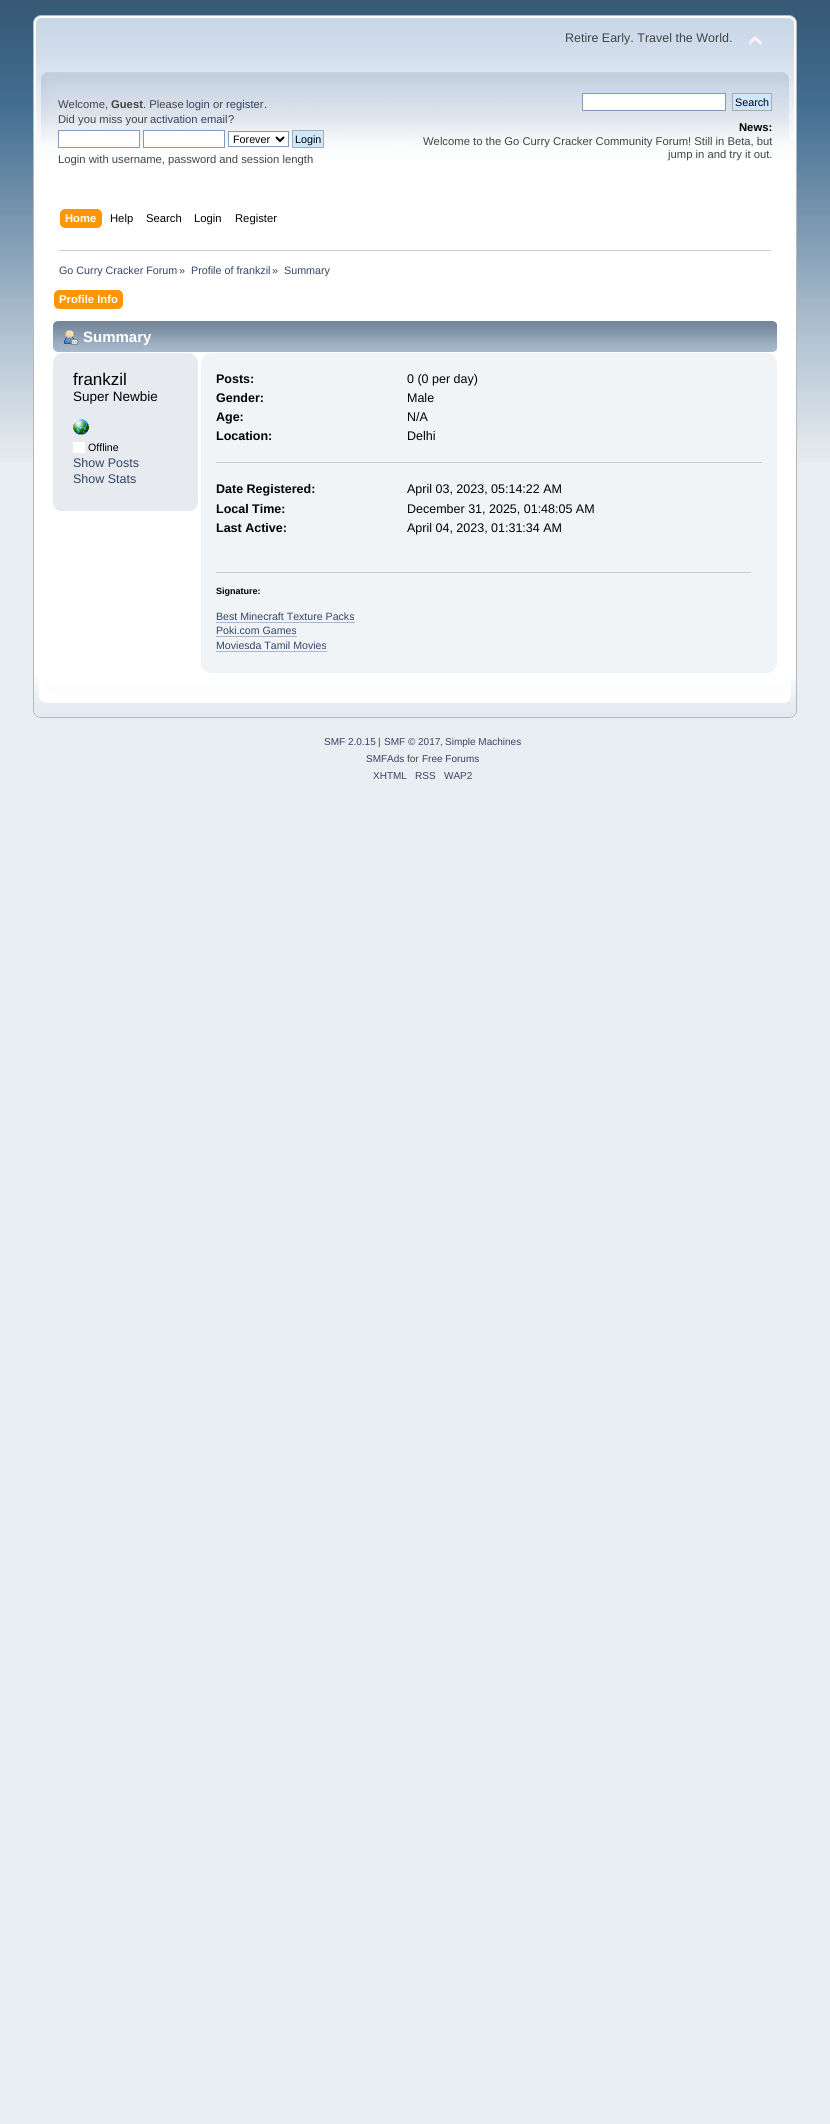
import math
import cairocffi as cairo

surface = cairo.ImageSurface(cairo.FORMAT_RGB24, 830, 2124)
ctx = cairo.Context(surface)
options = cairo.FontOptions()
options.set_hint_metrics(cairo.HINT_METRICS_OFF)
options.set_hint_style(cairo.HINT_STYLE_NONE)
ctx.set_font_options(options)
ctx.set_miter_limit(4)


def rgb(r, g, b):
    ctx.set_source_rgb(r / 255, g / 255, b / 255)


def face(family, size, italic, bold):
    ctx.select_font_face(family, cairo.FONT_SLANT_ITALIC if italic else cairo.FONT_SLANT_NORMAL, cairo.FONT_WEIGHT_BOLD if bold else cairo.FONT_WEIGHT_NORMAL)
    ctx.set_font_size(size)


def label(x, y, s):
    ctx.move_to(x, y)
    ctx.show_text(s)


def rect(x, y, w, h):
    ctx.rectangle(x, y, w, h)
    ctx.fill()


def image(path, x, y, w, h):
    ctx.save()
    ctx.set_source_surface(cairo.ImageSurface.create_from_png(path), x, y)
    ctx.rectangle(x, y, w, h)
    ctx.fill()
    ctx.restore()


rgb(233, 238, 242)
ctx.paint()
image('image0.png', 0, 0, 830, 462)
image('image1.png', 33, 15, 750, 229)
image('image2.png', 783, 15, 14, 229)
face('Liberation Sans', 12.5, 0, 0)
rgb(68, 68, 68)
label(565, 42, 'Retire Early. Travel the World.')
image('image3.png', 748, 35, 15, 12)
face('Liberation Sans', 11.25, 0, 0)
label(58, 108, 'Welcome,')
face('Liberation Sans', 11.25, 0, 1)
label(111, 108, 'Guest')
face('Liberation Sans', 11.25, 0, 0)
label(143, 108, '. Please')
rgb(51, 68, 102)
label(186, 108, 'login')
rgb(68, 68, 68)
label(213, 108, 'or')
rgb(51, 68, 102)
label(226, 108, 'register')
rgb(68, 68, 68)
label(264, 108, '.')
label(58, 123, 'Did you miss your')
rgb(51, 68, 102)
label(150, 123, 'activation email')
rgb(68, 68, 68)
label(228, 123, '?')
rgb(255, 255, 255)
ctx.rectangle(58.5, 130.5, 81, 17)
ctx.fill_preserve()
rgb(127, 157, 185)
ctx.set_line_width(1)
ctx.stroke()
rgb(255, 255, 255)
ctx.rectangle(143.5, 130.5, 81, 17)
ctx.fill_preserve()
rgb(127, 157, 185)
ctx.stroke()
rgb(255, 255, 255)
ctx.rectangle(228.5, 131.5, 60, 15)
ctx.fill_preserve()
rgb(127, 157, 185)
ctx.stroke()
ctx.new_path()
ctx.move_to(276, 137)
ctx.line_to(280, 141)
ctx.line_to(284, 137)
rgb(0, 0, 0)
ctx.set_line_width(2)
ctx.stroke()
face('Liberation Sans', 10.75, 0, 0)
label(233, 143, 'Forever')
rgb(205, 231, 255)
ctx.rectangle(292.5, 130.5, 31, 17)
ctx.fill_preserve()
rgb(170, 170, 170)
ctx.set_line_width(1)
ctx.stroke()
rgb(0, 0, 0)
label(295, 143, 'Login')
face('Liberation Sans', 11.25, 0, 0)
rgb(68, 68, 68)
label(58, 163, 'Login with username, password and session length')
rgb(255, 255, 255)
ctx.rectangle(582.5, 93.5, 143, 17)
ctx.fill_preserve()
rgb(127, 157, 185)
ctx.stroke()
rgb(205, 231, 255)
ctx.rectangle(732.5, 93.5, 39, 17)
ctx.fill_preserve()
rgb(170, 170, 170)
ctx.stroke()
face('Liberation Sans', 10.75, 0, 0)
rgb(0, 0, 0)
label(735, 106, 'Search')
face('Liberation Sans', 11.25, 0, 1)
label(739, 131, 'News:')
face('Liberation Sans', 11.25, 0, 0)
rgb(68, 68, 68)
label(423, 145, 'Welcome to the Go Curry Cracker Community Forum! Still in Beta, but')
label(668, 158, 'jump in and try it out.')
image('image4.png', 65, 209, 37, 19)
image('image5.png', 60, 209, 5, 19)
face('Liberation Sans', 11.25, 0, 1)
rgb(255, 255, 255)
label(65, 222, 'Home')
face('Liberation Sans', 11.25, 0, 0)
rgb(0, 0, 0)
label(110, 222, 'Help')
label(146, 222, 'Search')
label(194, 222, 'Login')
label(235, 222, 'Register')
rgb(255, 255, 255)
rect(34, 244, 762, 430)
rgb(183, 183, 183)
rect(33, 244, 1, 430)
rect(796, 244, 1, 430)
rgb(204, 204, 204)
rect(59, 250, 712, 1)
face('Liberation Sans', 10.75, 0, 0)
rgb(51, 68, 102)
label(59, 274, 'Go Curry Cracker Forum')
rgb(68, 68, 68)
label(179, 274, '»')
rgb(51, 68, 102)
label(191, 274, 'Profile of frankzil')
rgb(68, 68, 68)
label(272, 274, '»')
rgb(51, 68, 102)
label(284, 274, 'Summary')
image('image6.png', 59, 290, 64, 19)
image('image7.png', 54, 290, 5, 19)
face('Liberation Sans', 11.25, 0, 1)
rgb(255, 255, 255)
label(59, 303, 'Profile Info')
image('image8.png', 53, 321, 719, 31)
image('image9.png', 772, 321, 5, 31)
image('image10.png', 64, 330, 14, 15)
face('Liberation Sans', 15, 0, 1)
label(83, 342, 'Summary')
rgb(231, 234, 239)
rect(53, 353, 145, 158)
image('image11.png', 53, 353, 9, 9)
image('image12.png', 189, 353, 9, 8)
face('Liberation Sans', 17, 0, 0)
rgb(0, 0, 0)
label(73, 385, 'frankzil')
face('Liberation Sans', 13.5, 0, 0)
label(73, 401, 'Super Newbie')
image('image13.png', 73, 419, 16, 16)
rgb(255, 255, 255)
rect(73, 442, 12, 11)
face('Liberation Sans', 10.6, 0, 0)
rgb(0, 0, 0)
label(88, 451, 'Offline')
face('Liberation Sans', 12.5, 0, 0)
rgb(51, 68, 102)
label(73, 467, 'Show Posts')
label(73, 483, 'Show Stats')
image('image14.png', 53, 503, 6, 8)
image('image15.png', 192, 503, 6, 8)
rgb(240, 244, 247)
rect(201, 353, 576, 320)
image('image16.png', 201, 353, 8, 8)
image('image17.png', 769, 353, 8, 8)
rgb(204, 204, 204)
rect(216, 462, 546, 1)
face('Liberation Sans', 12.5, 0, 1)
rgb(0, 0, 0)
label(216, 383, 'Posts:')
face('Liberation Sans', 12.5, 0, 0)
label(407, 383, '0 (0 per day)')
face('Liberation Sans', 12.5, 0, 1)
label(216, 402, 'Gender:')
face('Liberation Sans', 12.5, 0, 0)
label(407, 402, 'Male')
face('Liberation Sans', 12.5, 0, 1)
label(216, 421, 'Age:')
face('Liberation Sans', 12.5, 0, 0)
label(407, 421, 'N/A')
face('Liberation Sans', 12.5, 0, 1)
label(216, 440, 'Location:')
face('Liberation Sans', 12.5, 0, 0)
label(407, 440, 'Delhi')
face('Liberation Sans', 12.5, 0, 1)
label(216, 493, 'Date Registered:')
face('Liberation Sans', 12.5, 0, 0)
label(407, 493, 'April 03, 2023, 05:14:22 AM')
face('Liberation Sans', 12.5, 0, 1)
label(216, 513, 'Local Time:')
face('Liberation Sans', 12.5, 0, 0)
label(407, 513, 'December 31, 2025, 01:48:05 AM')
face('Liberation Sans', 12.5, 0, 1)
label(216, 532, 'Last Active:')
face('Liberation Sans', 12.5, 0, 0)
label(407, 532, 'April 04, 2023, 01:31:34 AM')
rgb(204, 204, 204)
rect(216, 572, 535, 1)
face('Liberation Sans', 9, 0, 1)
rgb(0, 0, 0)
label(216, 594, 'Signature:')
face('Liberation Sans', 10.6, 0, 0)
rgb(51, 68, 102)
label(216, 620, 'Best Minecraft Texture Packs')
rgb(168, 182, 207)
rect(216, 622, 139, 1)
rgb(51, 68, 102)
label(216, 634, 'Poki.com Games')
rgb(168, 182, 207)
rect(216, 636, 81, 1)
rgb(51, 68, 102)
label(216, 649, 'Moviesda Tamil Movies')
rgb(168, 182, 207)
rect(216, 651, 111, 1)
image('image18.png', 201, 665, 8, 8)
image('image19.png', 769, 665, 8, 8)
image('image20.png', 33, 674, 752, 44)
image('image21.png', 785, 674, 12, 44)
face('Liberation Sans', 10, 0, 0)
rgb(51, 68, 102)
label(324, 745, 'SMF 2.0.15')
rgb(68, 68, 68)
label(378, 745, '|')
rgb(51, 68, 102)
label(384, 745, 'SMF © 2017')
rgb(68, 68, 68)
label(440, 745, ',')
rgb(51, 68, 102)
label(445, 745, 'Simple Machines')
label(366, 762, 'SMFAds')
rgb(68, 68, 68)
label(407, 762, 'for')
rgb(51, 68, 102)
label(422, 762, 'Free Forums')
label(373, 779, 'XHTML')
label(415, 779, 'RSS')
label(444, 779, 'WAP2')
surface.write_to_png('render.png')
